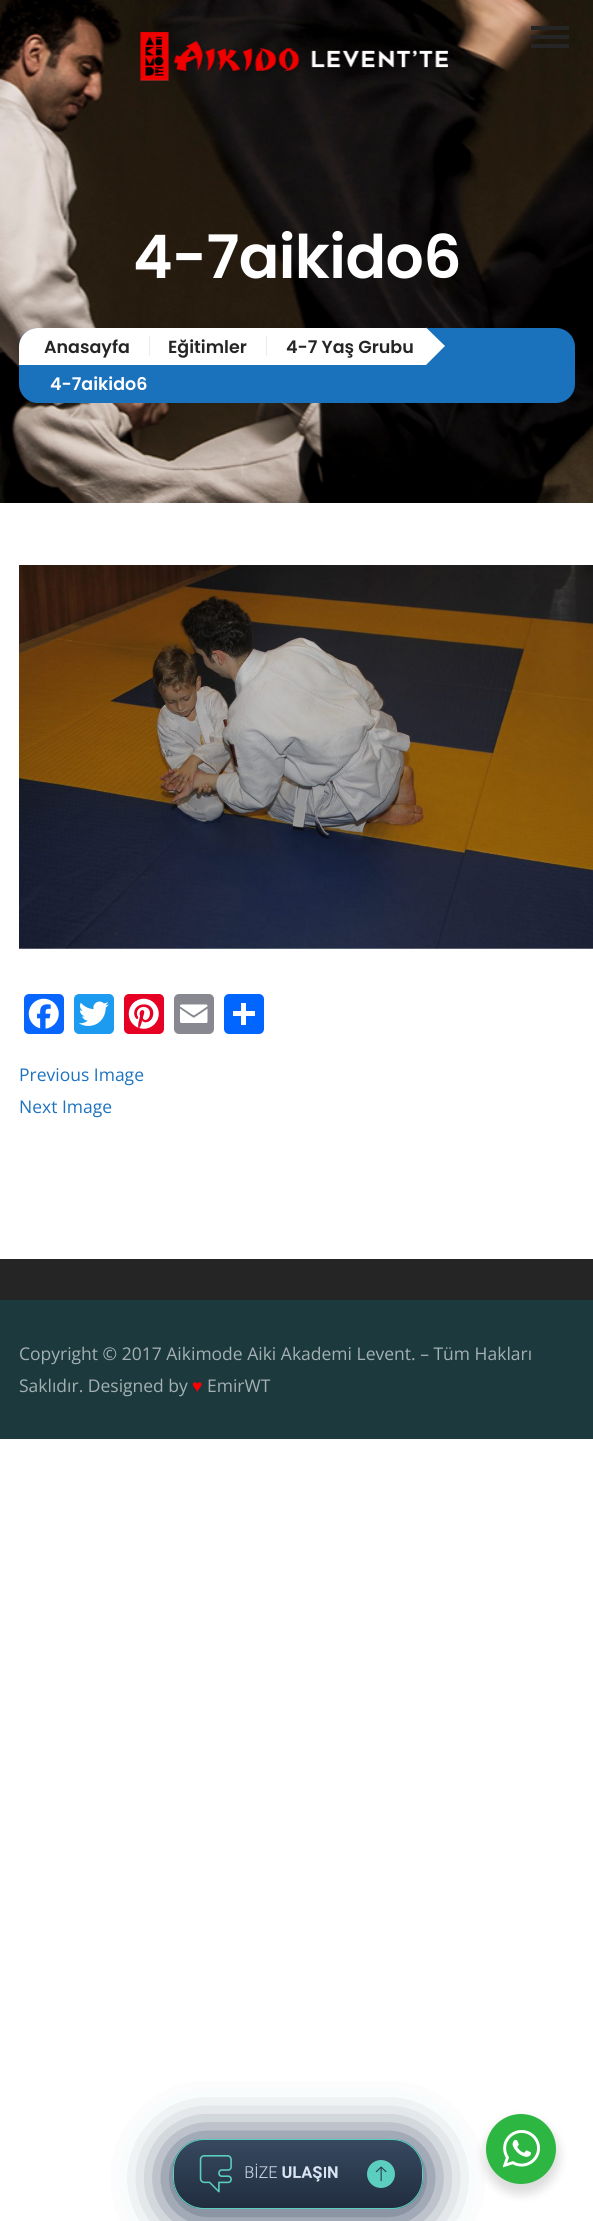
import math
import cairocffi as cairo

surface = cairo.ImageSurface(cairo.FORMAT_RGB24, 593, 2221)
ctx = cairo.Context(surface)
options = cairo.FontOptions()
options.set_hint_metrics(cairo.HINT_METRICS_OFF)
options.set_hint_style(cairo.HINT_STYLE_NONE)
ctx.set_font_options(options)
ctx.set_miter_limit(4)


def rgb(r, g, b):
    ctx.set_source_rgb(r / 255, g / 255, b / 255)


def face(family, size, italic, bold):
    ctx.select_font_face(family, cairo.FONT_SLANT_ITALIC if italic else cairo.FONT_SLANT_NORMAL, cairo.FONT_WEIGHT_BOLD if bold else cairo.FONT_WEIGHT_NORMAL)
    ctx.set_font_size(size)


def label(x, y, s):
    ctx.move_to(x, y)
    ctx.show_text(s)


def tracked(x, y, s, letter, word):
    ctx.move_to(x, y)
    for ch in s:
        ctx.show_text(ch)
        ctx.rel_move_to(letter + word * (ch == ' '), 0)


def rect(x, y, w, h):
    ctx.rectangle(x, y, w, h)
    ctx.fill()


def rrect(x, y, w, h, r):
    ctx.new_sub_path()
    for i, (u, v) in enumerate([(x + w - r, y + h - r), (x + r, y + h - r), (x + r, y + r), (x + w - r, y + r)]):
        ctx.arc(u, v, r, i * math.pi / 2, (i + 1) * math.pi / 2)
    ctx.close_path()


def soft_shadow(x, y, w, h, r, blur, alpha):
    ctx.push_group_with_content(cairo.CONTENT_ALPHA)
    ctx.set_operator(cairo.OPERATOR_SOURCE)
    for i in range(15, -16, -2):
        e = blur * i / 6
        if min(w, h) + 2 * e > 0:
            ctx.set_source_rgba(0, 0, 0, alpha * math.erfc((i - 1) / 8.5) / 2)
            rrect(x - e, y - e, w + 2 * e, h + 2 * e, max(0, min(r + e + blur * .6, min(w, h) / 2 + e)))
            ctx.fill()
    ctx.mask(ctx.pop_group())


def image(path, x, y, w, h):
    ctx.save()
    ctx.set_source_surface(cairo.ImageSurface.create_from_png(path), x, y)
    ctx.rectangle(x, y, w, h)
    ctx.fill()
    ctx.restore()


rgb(255, 255, 255)
ctx.paint()
image('image0.png', 0, 0, 593, 503)
image('image1.png', 140, 32, 309, 49)
rgb(37, 37, 37)
rect(531, 35, 38, 4)
rect(531, 26, 38, 4)
rect(531, 44, 38, 4)
face('Poppins SemiBold', 60, 0, 0)
rgb(255, 255, 255)
tracked(133, 278, '4-7aikido6', -0.6, 0)
rgb(26, 113, 188)
rrect(19, 328, 556, 75, 19)
ctx.fill()
rgb(255, 255, 255)
ctx.new_path()
ctx.move_to(38, 328)
ctx.line_to(150, 328)
ctx.line_to(150, 365)
ctx.line_to(19, 365)
ctx.line_to(19, 347)
ctx.curve_to(19, 336.5, 27.5, 328, 38, 328)
ctx.close_path()
ctx.fill()
rgb(235, 235, 235)
rect(149, 336, 1, 20)
face('Poppins SemiBold', 17.5, 0, 0)
rgb(37, 37, 37)
label(44, 353, 'Anasayfa')
rgb(255, 255, 255)
rect(150, 328, 276, 37)
rgb(235, 235, 235)
rect(266, 336, 1, 20)
rgb(37, 37, 37)
label(168, 353, 'Eğitimler')
label(286, 353, '4-7 Yaş Grubu')
rgb(255, 255, 255)
ctx.new_path()
ctx.move_to(426, 365)
ctx.line_to(426, 327.5)
ctx.line_to(445, 346)
ctx.close_path()
ctx.fill()
label(50, 390, '4-7aikido6')
image('image2.png', 19, 565, 574, 384)
rgb(8, 102, 255)
rrect(24, 994, 40, 40, 5)
ctx.fill()
image('image3.png', 28, 998, 31, 31)
rgb(29, 155, 240)
rrect(74, 994, 40, 40, 5)
ctx.fill()
image('image4.png', 79, 1001, 30, 25)
rgb(230, 0, 35)
rrect(124, 994, 40, 40, 5)
ctx.fill()
image('image5.png', 128, 998, 31, 31)
rgb(136, 137, 144)
rrect(174, 994, 40, 40, 5)
ctx.fill()
image('image6.png', 180, 1004, 28, 19)
rgb(1, 102, 255)
rrect(224, 994, 40, 40, 5)
ctx.fill()
rgb(255, 255, 255)
rect(241, 1003, 5, 22)
rect(233, 1011, 22, 5)
face('Open Sans', 17.5, 0, 0)
rgb(30, 115, 190)
label(19, 1081, 'Previous Image')
label(19, 1113, 'Next Image')
rgb(37, 37, 37)
rect(0, 1259, 593, 41)
rgb(28, 57, 62)
rect(0, 1300, 593, 139)
rgb(164, 176, 178)
label(19, 1360, 'Copyright © 2017 Aikimode Aiki Akademi Levent. – Tüm Hakları')
label(19, 1392, 'Saklıdır. Designed by')
face('Liberation Serif', 17.5, 0, 0)
rgb(255, 0, 0)
label(192, 1392, '♥')
face('Open Sans', 17.5, 0, 0)
rgb(164, 176, 178)
label(207, 1392, 'EmirWT')
rgb(54, 72, 95)
soft_shadow(173, 2143, 250, 70, 31, 25, 0.5)
rrect(173.5, 2139.5, 249, 69, 30.5)
rgb(92, 206, 191)
ctx.set_line_width(1)
ctx.stroke()
rgb(54, 72, 95)
soft_shadow(173, 2143, 250, 70, 31, 25, 0.5)
rrect(173.5, 2139.5, 249, 69, 30.5)
rgb(92, 206, 191)
ctx.stroke()
rgb(54, 72, 95)
soft_shadow(173, 2143, 250, 70, 31, 25, 0.5)
ctx.save()
rrect(173, 2139, 250, 70, 31)
ctx.clip()
gradient = cairo.LinearGradient(298, 2140, 298, 2208)
gradient.add_color_stop_rgba(0, 0.216, 0.286, 0.376, 1)
gradient.add_color_stop_rgba(1, 0.129, 0.176, 0.247, 1)
ctx.set_source(gradient)
rect(173, 2140, 250, 68)
ctx.restore()
rrect(173.5, 2139.5, 249, 69, 30.5)
rgb(92, 206, 191)
ctx.stroke()
image('image7.png', 199, 2155, 196, 38)
rgb(0, 0, 0)
soft_shadow(484, 2119, 75, 75, 37.5, 5, 0.14)
rgb(45, 183, 66)
ctx.arc(521, 2149, 35, 0, 2 * math.pi)
ctx.fill()
image('image8.png', 503, 2130, 37, 38)
surface.write_to_png('render.png')
